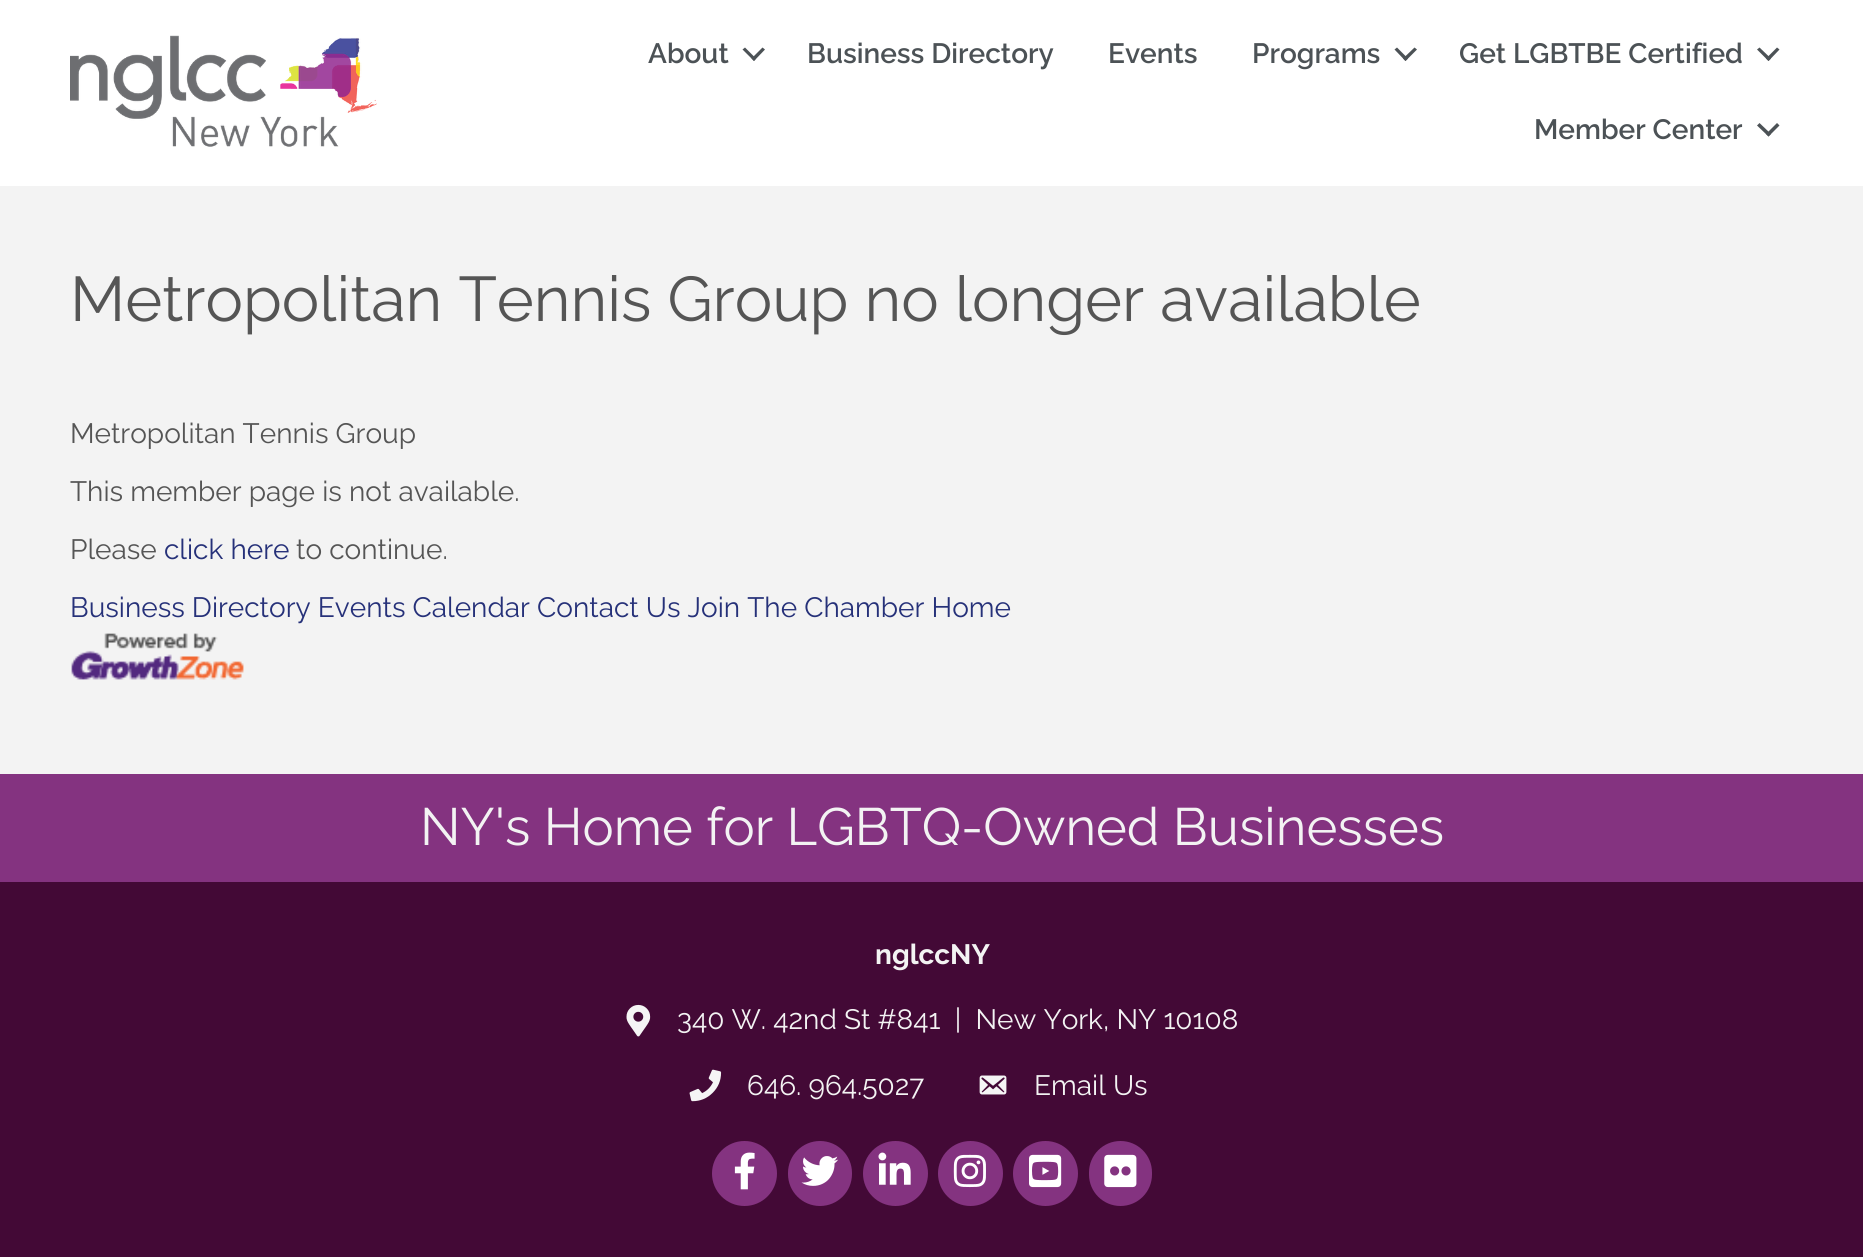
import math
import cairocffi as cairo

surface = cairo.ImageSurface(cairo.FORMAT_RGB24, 1863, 1257)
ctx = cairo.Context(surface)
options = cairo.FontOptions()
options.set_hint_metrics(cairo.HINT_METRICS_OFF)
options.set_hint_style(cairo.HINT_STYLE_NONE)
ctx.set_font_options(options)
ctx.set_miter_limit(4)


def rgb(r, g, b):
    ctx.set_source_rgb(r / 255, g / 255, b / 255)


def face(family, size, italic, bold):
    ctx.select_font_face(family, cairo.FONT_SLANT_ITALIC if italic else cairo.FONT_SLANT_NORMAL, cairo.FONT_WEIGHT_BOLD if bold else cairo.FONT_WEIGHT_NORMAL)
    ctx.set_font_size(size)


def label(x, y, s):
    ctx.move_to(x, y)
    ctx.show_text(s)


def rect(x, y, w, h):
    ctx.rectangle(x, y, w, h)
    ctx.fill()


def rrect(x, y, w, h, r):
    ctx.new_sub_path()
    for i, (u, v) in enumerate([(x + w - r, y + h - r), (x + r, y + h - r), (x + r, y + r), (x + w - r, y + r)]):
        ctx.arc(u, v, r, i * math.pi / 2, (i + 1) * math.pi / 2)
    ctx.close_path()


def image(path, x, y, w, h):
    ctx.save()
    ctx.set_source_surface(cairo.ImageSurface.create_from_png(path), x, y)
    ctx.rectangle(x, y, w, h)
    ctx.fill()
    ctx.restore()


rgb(255, 255, 255)
ctx.paint()
image('image0.png', 70, 35, 307, 112)
face('Raleway SemiBold', 28, 0, 0)
rgb(76, 82, 86)
label(648, 63, 'About')
ctx.new_path()
ctx.move_to(762.5, 47.5)
ctx.line_to(765, 49.5)
ctx.line_to(754, 61)
ctx.line_to(751.5, 58.5)
ctx.close_path()
ctx.fill()
ctx.new_path()
ctx.move_to(745, 47.5)
ctx.line_to(756, 58.5)
ctx.line_to(754, 61)
ctx.line_to(742.5, 49.5)
ctx.close_path()
ctx.fill()
label(807, 63, 'Business Directory')
label(1108, 63, 'Events')
label(1252, 63, 'Programs')
ctx.new_path()
ctx.move_to(1414.5, 47.5)
ctx.line_to(1417, 49.5)
ctx.line_to(1405.5, 61)
ctx.line_to(1403, 58.5)
ctx.close_path()
ctx.fill()
ctx.new_path()
ctx.move_to(1397, 47.5)
ctx.line_to(1408, 58.5)
ctx.line_to(1405.5, 61)
ctx.line_to(1394.5, 49.5)
ctx.close_path()
ctx.fill()
label(1459, 63, 'Get LGBTBE Certified')
ctx.new_path()
ctx.move_to(1777, 47.5)
ctx.line_to(1779.5, 49.5)
ctx.line_to(1768.5, 61)
ctx.line_to(1766, 58.5)
ctx.close_path()
ctx.fill()
ctx.new_path()
ctx.move_to(1759.5, 47.5)
ctx.line_to(1771, 58.5)
ctx.line_to(1768.5, 61)
ctx.line_to(1757, 49.5)
ctx.close_path()
ctx.fill()
label(1534, 139, 'Member Center')
ctx.new_path()
ctx.move_to(1777, 123)
ctx.line_to(1779.5, 125.5)
ctx.line_to(1768.5, 136.5)
ctx.line_to(1766, 134)
ctx.close_path()
ctx.fill()
ctx.new_path()
ctx.move_to(1759.5, 123)
ctx.line_to(1771, 134)
ctx.line_to(1768.5, 136.5)
ctx.line_to(1757, 125.5)
ctx.close_path()
ctx.fill()
rgb(243, 243, 243)
rect(0, 186, 1863, 588)
face('Raleway', 63, 0, 0)
rgb(85, 85, 85)
label(70, 321, 'Metropolitan Tennis Group no longer available')
face('Raleway', 28, 0, 0)
label(70, 443, 'Metropolitan Tennis Group')
label(70, 501, 'This member page is not available.')
label(70, 559, 'Please')
rgb(38, 49, 121)
label(164, 559, 'click here')
rgb(85, 85, 85)
label(296, 559, 'to continue.')
rgb(38, 49, 121)
label(70, 617, 'Business Directory Events Calendar Contact Us Join The Chamber Home')
image('image1.png', 71, 633, 173, 47)
rgb(132, 51, 128)
rect(0, 774, 1863, 108)
face('Raleway', 52.5, 0, 0)
rgb(243, 243, 243)
label(420, 845, 'NY\'s Home for LGBTQ-Owned Businesses')
rgb(67, 9, 54)
rect(0, 882, 1863, 375)
face('Raleway', 28, 0, 1)
rgb(243, 243, 243)
label(875, 964, 'nglccNY')
image('image2.png', 626, 1004, 25, 33)
face('Raleway', 28, 0, 0)
label(677, 1029, '340 W. 42nd St #841  |  New York, NY 10108')
image('image3.png', 689, 1069, 33, 33)
label(747, 1095, '646. 964.5027')
image('image4.png', 979, 1075, 28, 20)
label(1034, 1095, 'Email Us')
rgb(132, 51, 128)
ctx.new_path()
ctx.arc(744.5, 1173.5, 32.5, 0, 2 * math.pi)
ctx.fill()
image('image5.png', 734, 1152, 21, 38)
rrect(788, 1141, 64, 65, 32)
ctx.fill()
image('image6.png', 801, 1156, 38, 30)
ctx.arc(895.5, 1173.5, 32.5, 0, 2 * math.pi)
ctx.fill()
image('image7.png', 878, 1152, 33, 33)
ctx.arc(970.5, 1173.5, 32.5, 0, 2 * math.pi)
ctx.fill()
image('image8.png', 953, 1154, 33, 34)
ctx.arc(1045.5, 1173.5, 32.5, 0, 2 * math.pi)
ctx.fill()
image('image9.png', 1029, 1154, 33, 34)
rrect(1089, 1141, 63, 65, 31.5)
ctx.fill()
image('image10.png', 1104, 1154, 33, 34)
surface.write_to_png('render.png')
